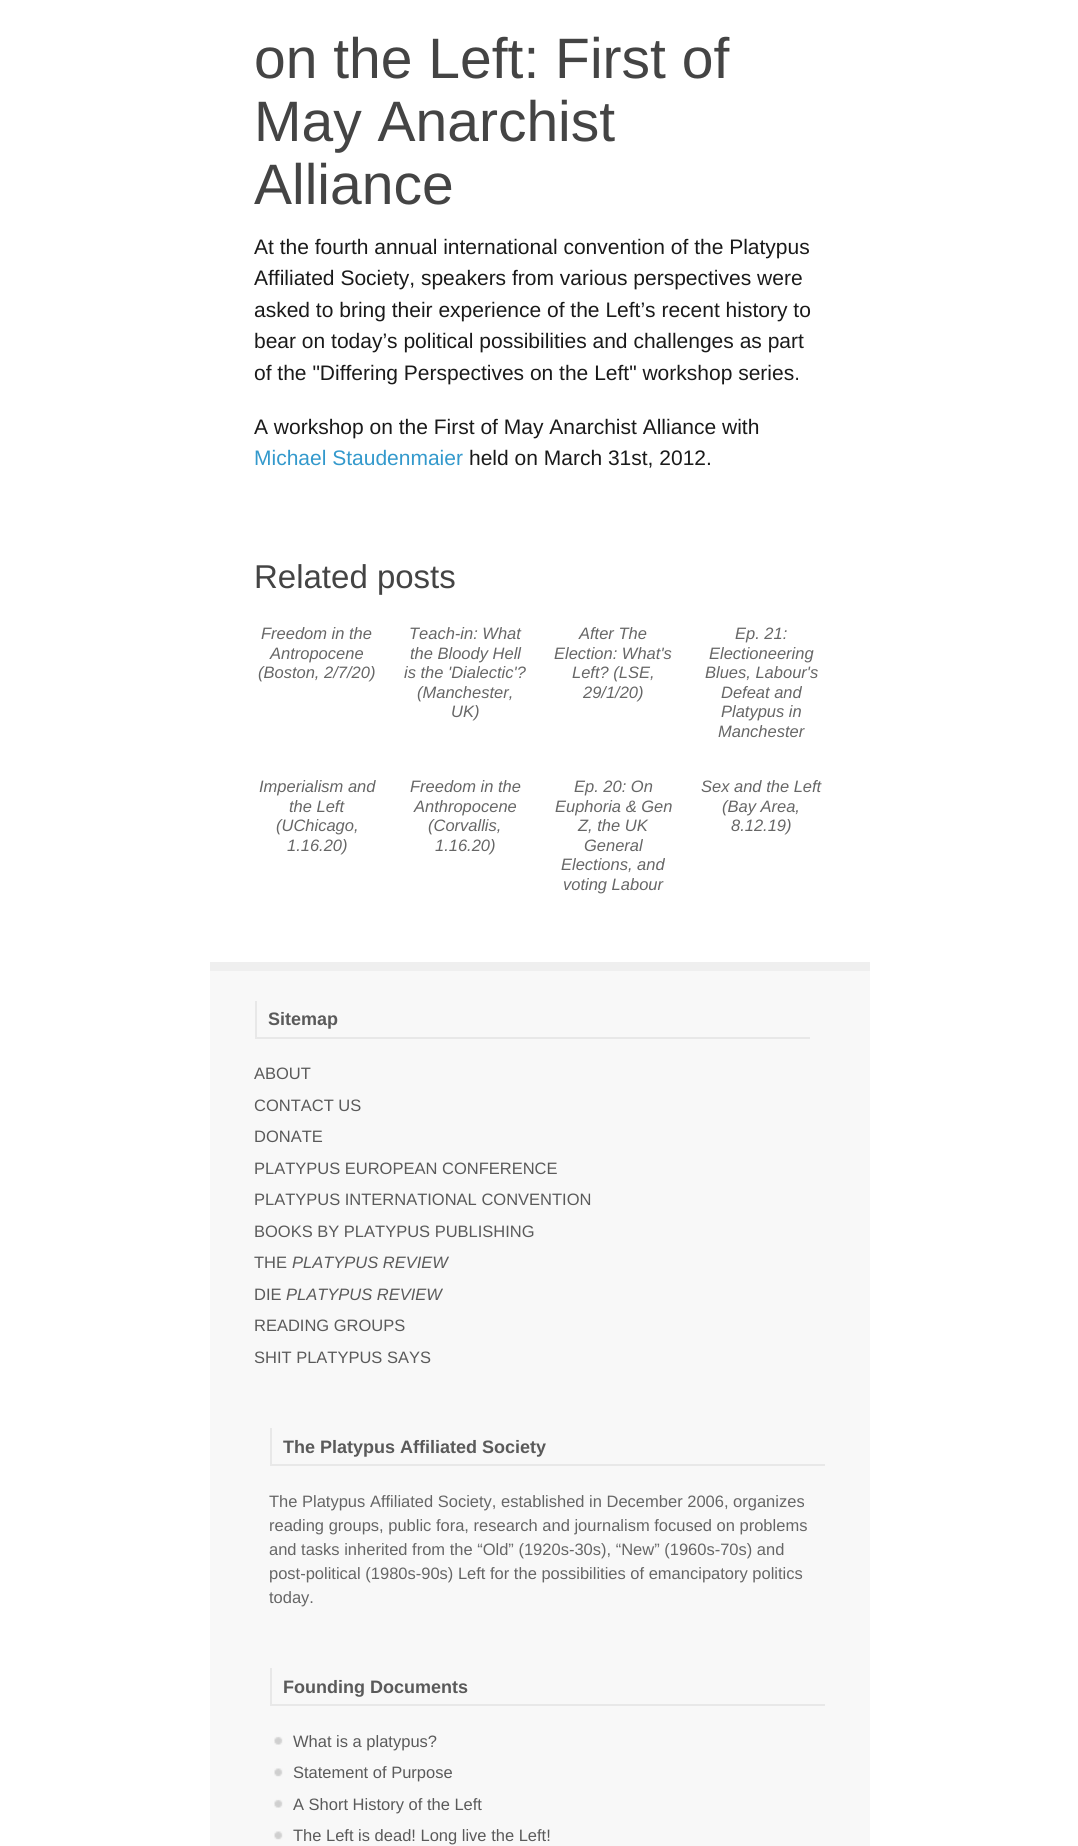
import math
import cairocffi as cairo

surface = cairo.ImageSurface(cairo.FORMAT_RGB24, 1078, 1846)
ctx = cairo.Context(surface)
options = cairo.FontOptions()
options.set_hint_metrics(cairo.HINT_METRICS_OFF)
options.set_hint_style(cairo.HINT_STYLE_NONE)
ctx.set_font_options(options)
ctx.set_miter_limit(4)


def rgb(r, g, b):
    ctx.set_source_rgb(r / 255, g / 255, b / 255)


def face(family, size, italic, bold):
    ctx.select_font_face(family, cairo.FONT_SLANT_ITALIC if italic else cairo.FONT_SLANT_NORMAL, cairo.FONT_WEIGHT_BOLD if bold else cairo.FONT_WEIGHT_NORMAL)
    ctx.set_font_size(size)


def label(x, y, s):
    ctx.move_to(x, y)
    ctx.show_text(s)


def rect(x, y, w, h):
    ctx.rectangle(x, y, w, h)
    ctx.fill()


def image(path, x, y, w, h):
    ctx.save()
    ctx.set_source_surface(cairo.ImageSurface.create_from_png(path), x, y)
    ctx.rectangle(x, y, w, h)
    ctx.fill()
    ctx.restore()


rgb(255, 255, 255)
ctx.paint()
face('Liberation Sans', 57, 0, 0)
rgb(68, 68, 68)
label(254, 78, 'on the Left: First of')
label(254, 141, 'May Anarchist')
label(254, 204, 'Alliance')
face('Liberation Sans', 21, 0, 0)
rgb(26, 26, 26)
label(254, 254, 'At the fourth annual international convention of the Platypus')
label(254, 285, 'Affiliated Society, speakers from various perspectives were')
label(254, 317, 'asked to bring their experience of the Left’s recent history to')
label(254, 348, 'bear on today’s political possibilities and challenges as part')
label(254, 380, 'of the "Differing Perspectives on the Left" workshop series.')
label(254, 434, 'A workshop on the First of May Anarchist Alliance with')
rgb(51, 153, 204)
label(254, 465, 'Michael Staudenmaier')
rgb(26, 26, 26)
label(469, 465, 'held on March 31st, 2012.')
face('Liberation Sans', 33, 0, 0)
rgb(68, 68, 68)
label(254, 588, 'Related posts')
face('Liberation Sans', 16.5, 1, 0)
rgb(102, 102, 102)
label(261, 639, 'Freedom in the')
label(270, 659, 'Antropocene')
label(258, 678, '(Boston, 2/7/20)')
label(409, 639, 'Teach-in: What')
label(410, 659, 'the Bloody Hell')
label(404, 678, 'is the \'Dialectic\'?')
label(417, 698, '(Manchester,')
label(451, 717, 'UK)')
label(579, 639, 'After The')
label(554, 659, 'Election: What\'s')
label(572, 678, 'Left? (LSE,')
label(583, 698, '29/1/20)')
label(735, 639, 'Ep. 21:')
label(709, 659, 'Electioneering')
label(705, 678, 'Blues, Labour\'s')
label(721, 698, 'Defeat and')
label(721, 717, 'Platypus in')
label(718, 737, 'Manchester')
label(259, 792, 'Imperialism and')
label(289, 812, 'the Left')
label(276, 831, '(UChicago,')
label(287, 851, '1.16.20)')
label(410, 792, 'Freedom in the')
label(414, 812, 'Anthropocene')
label(428, 831, '(Corvallis,')
label(435, 851, '1.16.20)')
label(574, 792, 'Ep. 20: On')
label(555, 812, 'Euphoria & Gen')
label(578, 831, 'Z, the UK')
label(584, 851, 'General')
label(561, 870, 'Elections, and')
label(563, 890, 'voting Labour')
label(701, 792, 'Sex and the Left')
label(722, 812, '(Bay Area,')
label(731, 831, '8.12.19)')
rgb(248, 248, 248)
rect(210, 971, 660, 875)
rgb(239, 239, 239)
rect(210, 962, 660, 9)
rgb(232, 232, 232)
rect(255, 1037, 555, 2)
rect(255, 1001, 2, 37)
face('Liberation Sans', 18, 0, 1)
rgb(90, 90, 90)
label(268, 1025, 'Sitemap')
face('Liberation Sans', 16.5, 0, 0)
label(254, 1079, 'ABOUT')
label(254, 1111, 'CONTACT US')
label(254, 1142, 'DONATE')
label(254, 1174, 'PLATYPUS EUROPEAN CONFERENCE')
label(254, 1205, 'PLATYPUS INTERNATIONAL CONVENTION')
label(254, 1237, 'BOOKS BY PLATYPUS PUBLISHING')
label(254, 1268, 'THE')
face('Liberation Sans', 16.5, 1, 0)
label(292, 1268, 'PLATYPUS REVIEW')
face('Liberation Sans', 16.5, 0, 0)
label(254, 1300, 'DIE')
face('Liberation Sans', 16.5, 1, 0)
label(286, 1300, 'PLATYPUS REVIEW')
face('Liberation Sans', 16.5, 0, 0)
label(254, 1331, 'READING GROUPS')
label(254, 1363, 'SHIT PLATYPUS SAYS')
rgb(232, 232, 232)
rect(270, 1464, 555, 2)
rect(270, 1428, 2, 38)
face('Liberation Sans', 18, 0, 1)
rgb(90, 90, 90)
label(283, 1453, 'The Platypus Affiliated Society')
face('Liberation Sans', 16.5, 0, 0)
rgb(102, 102, 102)
label(269, 1507, 'The Platypus Affiliated Society, established in December 2006, organizes')
label(269, 1531, 'reading groups, public fora, research and journalism focused on problems')
label(269, 1555, 'and tasks inherited from the “Old” (1920s-30s), “New” (1960s-70s) and')
label(269, 1579, 'post-political (1980s-90s) Left for the possibilities of emancipatory politics')
label(269, 1603, 'today.')
rgb(232, 232, 232)
rect(270, 1704, 555, 2)
rect(270, 1668, 2, 38)
face('Liberation Sans', 18, 0, 1)
rgb(90, 90, 90)
label(283, 1693, 'Founding Documents')
image('image0.png', 274, 1736, 9, 9)
face('Liberation Sans', 16.5, 0, 0)
label(293, 1747, 'What is a platypus?')
image('image1.png', 274, 1768, 9, 9)
label(293, 1778, 'Statement of Purpose')
image('image0.png', 274, 1799, 9, 9)
label(293, 1810, 'A Short History of the Left')
image('image1.png', 274, 1831, 9, 9)
label(293, 1841, 'The Left is dead! Long live the Left!')
surface.write_to_png('render.png')
